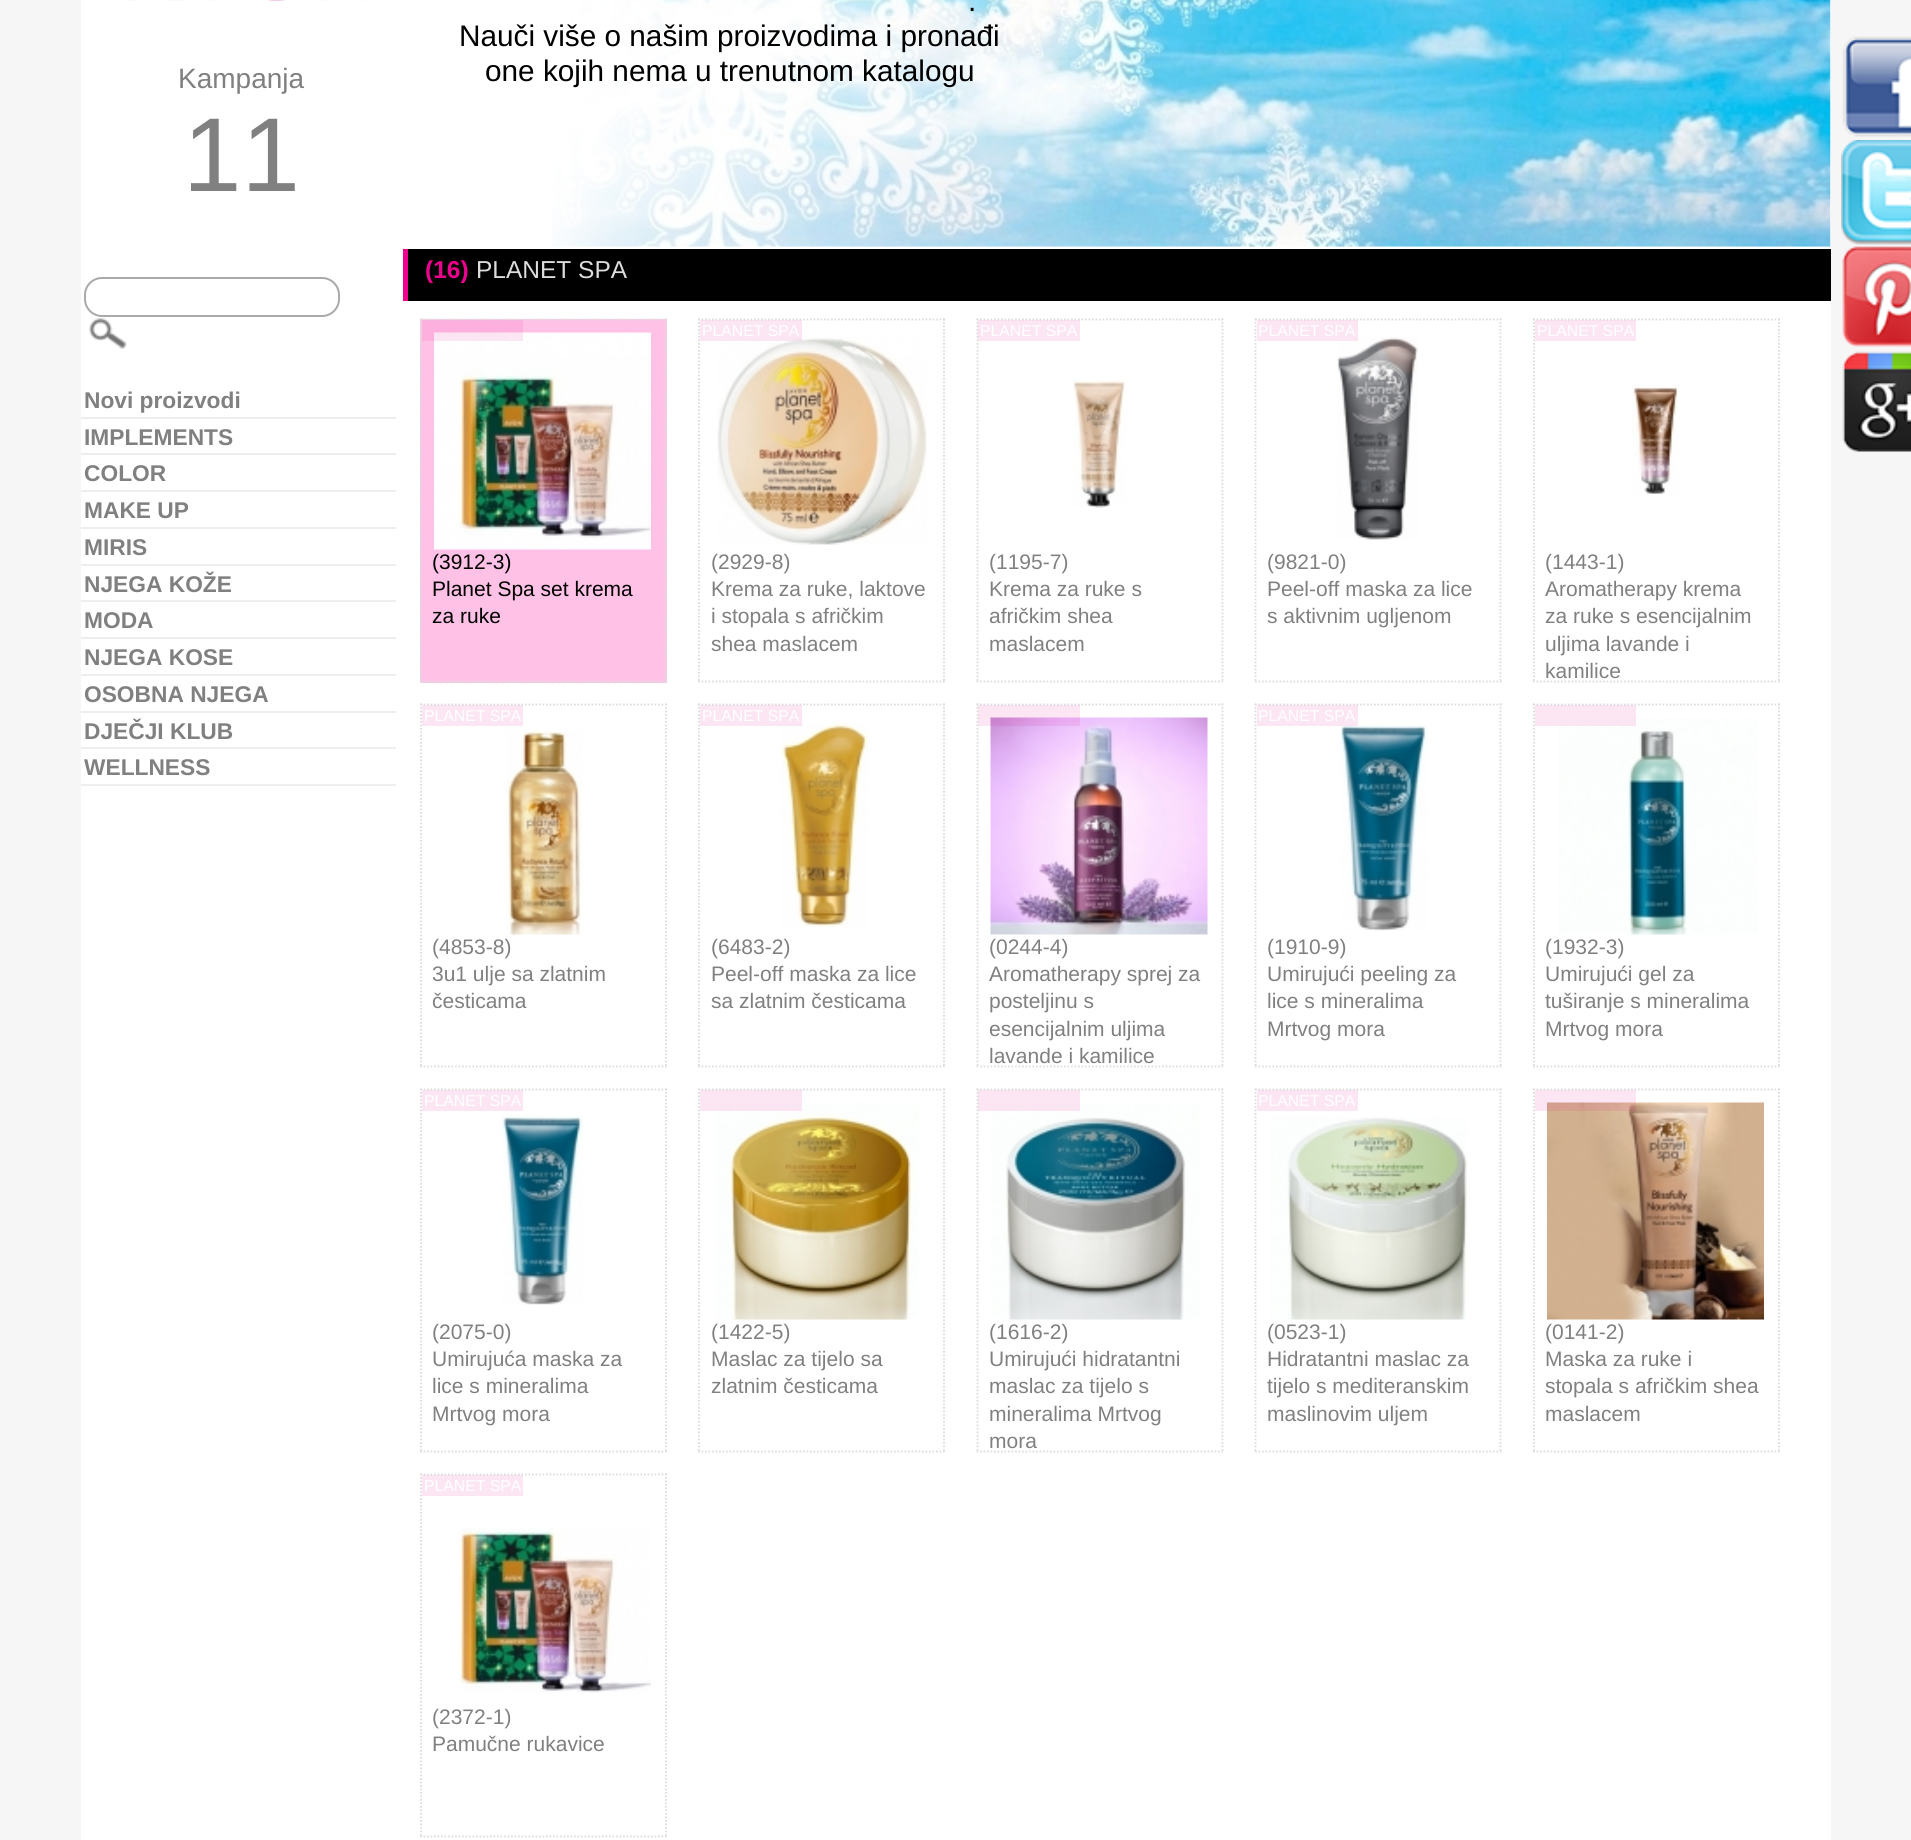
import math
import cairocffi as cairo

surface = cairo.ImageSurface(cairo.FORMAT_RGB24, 1911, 1840)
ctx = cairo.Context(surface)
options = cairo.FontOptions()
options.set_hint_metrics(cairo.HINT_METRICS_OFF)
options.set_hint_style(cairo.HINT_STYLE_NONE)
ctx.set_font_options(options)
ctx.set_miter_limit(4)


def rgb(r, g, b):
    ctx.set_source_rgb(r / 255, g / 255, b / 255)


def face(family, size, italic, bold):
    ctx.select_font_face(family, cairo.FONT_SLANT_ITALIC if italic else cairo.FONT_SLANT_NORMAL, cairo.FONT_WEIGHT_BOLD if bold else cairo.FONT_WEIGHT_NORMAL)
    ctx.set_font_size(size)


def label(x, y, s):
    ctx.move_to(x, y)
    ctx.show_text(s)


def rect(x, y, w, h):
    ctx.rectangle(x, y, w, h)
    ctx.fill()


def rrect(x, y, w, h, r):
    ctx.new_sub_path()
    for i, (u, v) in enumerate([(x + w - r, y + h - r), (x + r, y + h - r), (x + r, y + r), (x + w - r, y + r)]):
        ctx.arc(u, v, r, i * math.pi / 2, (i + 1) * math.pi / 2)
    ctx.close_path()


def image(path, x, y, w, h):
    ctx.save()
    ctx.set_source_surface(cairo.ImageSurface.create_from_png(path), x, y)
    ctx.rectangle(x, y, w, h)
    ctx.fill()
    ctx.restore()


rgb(247, 246, 247)
ctx.paint()
rgb(255, 255, 255)
rect(81, 0, 1750, 1840)
image('image0.png', 552, 0, 1279, 247)
face('Liberation Sans', 29.75, 0, 0)
rgb(0, 0, 0)
label(968, 11, '.')
label(459, 46, 'Nauči više o našim proizvodima i pronađi')
label(485, 81, 'one kojih nema u trenutnom katalogu')
image('image1.png', 127, 0, 239, 1)
face('Liberation Sans', 28, 0, 0)
rgb(128, 128, 128)
label(178, 88, 'Kampanja')
face('Liberation Sans', 105, 0, 0)
label(183, 191, '11')
rrect(85, 278, 254, 38, 17)
rgb(170, 170, 170)
ctx.stroke()
image('image2.png', 89, 318, 38, 31)
image('image3.png', 1842, 36, 69, 101)
image('image4.png', 1841, 140, 70, 105)
image('image5.png', 1842, 246, 69, 101)
image('image6.png', 1842, 351, 69, 101)
rgb(238, 238, 238)
rect(81, 417, 315, 2)
face('Liberation Sans', 22.75, 0, 1)
rgb(128, 128, 128)
label(84, 408, 'Novi proizvodi')
rgb(238, 238, 238)
rect(81, 453, 315, 2)
rgb(128, 128, 128)
label(84, 445, 'IMPLEMENTS')
rgb(238, 238, 238)
rect(81, 490, 315, 2)
rgb(128, 128, 128)
label(84, 481, 'COLOR')
rgb(238, 238, 238)
rect(81, 527, 315, 2)
rgb(128, 128, 128)
label(84, 518, 'MAKE UP')
rgb(238, 238, 238)
rect(81, 564, 315, 2)
rgb(128, 128, 128)
label(84, 555, 'MIRIS')
rgb(238, 238, 238)
rect(81, 600, 315, 2)
rgb(128, 128, 128)
label(84, 592, 'NJEGA KOŽE')
rgb(238, 238, 238)
rect(81, 637, 315, 2)
rgb(128, 128, 128)
label(84, 628, 'MODA')
rgb(238, 238, 238)
rect(81, 674, 315, 2)
rgb(128, 128, 128)
label(84, 665, 'NJEGA KOSE')
rgb(238, 238, 238)
rect(81, 711, 315, 2)
rgb(128, 128, 128)
label(84, 702, 'OSOBNA NJEGA')
rgb(238, 238, 238)
rect(81, 747, 315, 2)
rgb(128, 128, 128)
label(84, 739, 'DJEČJI KLUB')
rgb(238, 238, 238)
rect(81, 784, 315, 2)
rgb(128, 128, 128)
label(84, 775, 'WELLNESS')
rgb(0, 0, 0)
rect(408, 249, 1423, 52)
rgb(236, 0, 140)
rect(403, 249, 5, 52)
face('Liberation Sans', 24.5, 0, 1)
label(425, 278, '(16)')
face('Liberation Sans', 24.5, 0, 0)
rgb(221, 221, 221)
label(476, 278, 'PLANET SPA')
rgb(255, 194, 230)
rect(420, 319, 247, 364)
ctx.new_path()
ctx.move_to(420, 319.5)
ctx.line_to(667, 319.5)
rgb(221, 221, 221)
ctx.set_line_width(1.8)
ctx.set_dash([1.75, 1.75])
ctx.stroke()
image('image7.png', 434, 332, 217, 218)
ctx.set_source_rgba(0.925, 0, 0.549, 0.1)
rect(422, 320, 101, 21)
ctx.new_path()
ctx.move_to(666, 318.5)
ctx.line_to(666, 682.5)
rgb(221, 221, 221)
ctx.stroke()
ctx.new_path()
ctx.move_to(420, 681.5)
ctx.line_to(667, 681.5)
ctx.stroke()
ctx.new_path()
ctx.move_to(421, 318.5)
ctx.line_to(421, 682.5)
ctx.stroke()
face('Liberation Sans', 21, 0, 0)
rgb(0, 0, 0)
label(432, 569, '(3912-3)')
label(432, 596, 'Planet Spa set krema')
label(432, 623, 'za ruke')
ctx.new_path()
ctx.move_to(698, 319.5)
ctx.line_to(945, 319.5)
rgb(221, 221, 221)
ctx.stroke()
image('image8.png', 717, 337, 210, 208)
ctx.set_source_rgba(0.925, 0, 0.549, 0.1)
rect(700, 320, 102, 21)
face('Liberation Sans', 15.75, 0, 0)
rgb(255, 255, 255)
label(702, 336, 'PLANET SPA')
ctx.new_path()
ctx.move_to(944, 318.5)
ctx.line_to(944, 682.5)
rgb(221, 221, 221)
ctx.stroke()
ctx.new_path()
ctx.move_to(698, 681.5)
ctx.line_to(945, 681.5)
ctx.stroke()
ctx.new_path()
ctx.move_to(699, 318.5)
ctx.line_to(699, 682.5)
ctx.stroke()
face('Liberation Sans', 21, 0, 0)
rgb(128, 128, 128)
label(711, 569, '(2929-8)')
label(711, 596, 'Krema za ruke, laktove')
label(711, 623, 'i stopala s afričkim')
label(711, 651, 'shea maslacem')
ctx.new_path()
ctx.move_to(976.5, 319.5)
ctx.line_to(1223, 319.5)
rgb(221, 221, 221)
ctx.stroke()
ctx.new_path()
ctx.move_to(1222.5, 318.5)
ctx.line_to(1222.5, 682.5)
ctx.stroke()
ctx.new_path()
ctx.move_to(976.5, 681.5)
ctx.line_to(1223, 681.5)
ctx.stroke()
ctx.new_path()
ctx.move_to(977.5, 318.5)
ctx.line_to(977.5, 682.5)
ctx.stroke()
ctx.set_source_rgba(0.925, 0, 0.549, 0.1)
rect(978, 320, 102, 21)
face('Liberation Sans', 15.75, 0, 0)
rgb(255, 255, 255)
label(980, 336, 'PLANET SPA')
image('image9.png', 1073, 380, 53, 128)
face('Liberation Sans', 21, 0, 0)
rgb(128, 128, 128)
label(989, 569, '(1195-7)')
label(989, 596, 'Krema za ruke s')
label(989, 623, 'afričkim shea')
label(989, 651, 'maslacem')
ctx.new_path()
ctx.move_to(1255, 319.5)
ctx.line_to(1501.5, 319.5)
rgb(221, 221, 221)
ctx.stroke()
image('image10.png', 1337, 337, 81, 203)
ctx.set_source_rgba(0.925, 0, 0.549, 0.1)
rect(1257, 320, 101, 21)
face('Liberation Sans', 15.75, 0, 0)
rgb(255, 255, 255)
label(1258, 336, 'PLANET SPA')
ctx.new_path()
ctx.move_to(1500.5, 318.5)
ctx.line_to(1500.5, 682.5)
rgb(221, 221, 221)
ctx.stroke()
ctx.new_path()
ctx.move_to(1255, 681.5)
ctx.line_to(1501.5, 681.5)
ctx.stroke()
ctx.new_path()
ctx.move_to(1255.5, 318.5)
ctx.line_to(1255.5, 682.5)
ctx.stroke()
face('Liberation Sans', 21, 0, 0)
rgb(128, 128, 128)
label(1267, 569, '(9821-0)')
label(1267, 596, 'Peel-off maska za lice')
label(1267, 623, 's aktivnim ugljenom')
ctx.new_path()
ctx.move_to(1533, 319.5)
ctx.line_to(1780, 319.5)
rgb(221, 221, 221)
ctx.stroke()
ctx.set_source_rgba(0.925, 0, 0.549, 0.1)
rect(1535, 320, 101, 21)
face('Liberation Sans', 15.75, 0, 0)
rgb(255, 255, 255)
label(1537, 336, 'PLANET SPA')
ctx.new_path()
ctx.move_to(1779, 318.5)
ctx.line_to(1779, 682.5)
rgb(221, 221, 221)
ctx.stroke()
ctx.new_path()
ctx.move_to(1533, 681.5)
ctx.line_to(1780, 681.5)
ctx.stroke()
ctx.new_path()
ctx.move_to(1534, 318.5)
ctx.line_to(1534, 682.5)
ctx.stroke()
image('image11.png', 1632, 386, 47, 108)
face('Liberation Sans', 21, 0, 0)
rgb(128, 128, 128)
label(1545, 569, '(1443-1)')
label(1545, 596, 'Aromatherapy krema')
label(1545, 623, 'za ruke s esencijalnim')
label(1545, 651, 'uljima lavande i')
label(1545, 678, 'kamilice')
ctx.new_path()
ctx.move_to(420, 704.5)
ctx.line_to(667, 704.5)
rgb(221, 221, 221)
ctx.stroke()
ctx.set_source_rgba(0.925, 0, 0.549, 0.1)
rect(422, 705, 101, 21)
face('Liberation Sans', 15.75, 0, 0)
rgb(255, 255, 255)
label(424, 721, 'PLANET SPA')
ctx.new_path()
ctx.move_to(666, 703.5)
ctx.line_to(666, 1067.5)
rgb(221, 221, 221)
ctx.stroke()
ctx.new_path()
ctx.move_to(420, 1066.5)
ctx.line_to(667, 1066.5)
ctx.stroke()
ctx.new_path()
ctx.move_to(421, 703.5)
ctx.line_to(421, 1067.5)
ctx.stroke()
image('image12.png', 506, 730, 77, 205)
face('Liberation Sans', 21, 0, 0)
rgb(128, 128, 128)
label(432, 954, '(4853-8)')
label(432, 981, '3u1 ulje sa zlatnim')
label(432, 1008, 'česticama')
ctx.new_path()
ctx.move_to(698, 704.5)
ctx.line_to(945, 704.5)
rgb(221, 221, 221)
ctx.stroke()
image('image13.png', 781, 723, 87, 204)
ctx.set_source_rgba(0.925, 0, 0.549, 0.1)
rect(700, 705, 102, 21)
face('Liberation Sans', 15.75, 0, 0)
rgb(255, 255, 255)
label(702, 721, 'PLANET SPA')
ctx.new_path()
ctx.move_to(944, 703.5)
ctx.line_to(944, 1067.5)
rgb(221, 221, 221)
ctx.stroke()
ctx.new_path()
ctx.move_to(698, 1066.5)
ctx.line_to(945, 1066.5)
ctx.stroke()
ctx.new_path()
ctx.move_to(699, 703.5)
ctx.line_to(699, 1067.5)
ctx.stroke()
face('Liberation Sans', 21, 0, 0)
rgb(128, 128, 128)
label(711, 954, '(6483-2)')
label(711, 981, 'Peel-off maska za lice')
label(711, 1008, 'sa zlatnim česticama')
ctx.new_path()
ctx.move_to(976.5, 704.5)
ctx.line_to(1223, 704.5)
rgb(221, 221, 221)
ctx.stroke()
ctx.new_path()
ctx.move_to(1222.5, 703.5)
ctx.line_to(1222.5, 1067.5)
ctx.stroke()
ctx.new_path()
ctx.move_to(976.5, 1066.5)
ctx.line_to(1223, 1066.5)
ctx.stroke()
ctx.new_path()
ctx.move_to(977.5, 703.5)
ctx.line_to(977.5, 1067.5)
ctx.stroke()
image('image14.png', 990, 717, 218, 218)
ctx.set_source_rgba(0.925, 0, 0.549, 0.1)
rect(978, 705, 102, 21)
rgb(128, 128, 128)
label(989, 954, '(0244-4)')
label(989, 981, 'Aromatherapy sprej za')
label(989, 1008, 'posteljinu s')
label(989, 1036, 'esencijalnim uljima')
label(989, 1063, 'lavande i kamilice')
ctx.new_path()
ctx.move_to(1255, 704.5)
ctx.line_to(1501.5, 704.5)
rgb(221, 221, 221)
ctx.stroke()
image('image15.png', 1340, 725, 88, 206)
ctx.set_source_rgba(0.925, 0, 0.549, 0.1)
rect(1257, 705, 101, 21)
face('Liberation Sans', 15.75, 0, 0)
rgb(255, 255, 255)
label(1258, 721, 'PLANET SPA')
ctx.new_path()
ctx.move_to(1500.5, 703.5)
ctx.line_to(1500.5, 1067.5)
rgb(221, 221, 221)
ctx.stroke()
ctx.new_path()
ctx.move_to(1255, 1066.5)
ctx.line_to(1501.5, 1066.5)
ctx.stroke()
ctx.new_path()
ctx.move_to(1255.5, 703.5)
ctx.line_to(1255.5, 1067.5)
ctx.stroke()
face('Liberation Sans', 21, 0, 0)
rgb(128, 128, 128)
label(1267, 954, '(1910-9)')
label(1267, 981, 'Umirujući peeling za')
label(1267, 1008, 'lice s mineralima')
label(1267, 1036, 'Mrtvog mora')
ctx.new_path()
ctx.move_to(1533, 704.5)
ctx.line_to(1780, 704.5)
rgb(221, 221, 221)
ctx.stroke()
image('image16.png', 1558, 718, 199, 217)
ctx.set_source_rgba(0.925, 0, 0.549, 0.1)
rect(1535, 705, 101, 21)
ctx.new_path()
ctx.move_to(1779, 703.5)
ctx.line_to(1779, 1067.5)
rgb(221, 221, 221)
ctx.stroke()
ctx.new_path()
ctx.move_to(1533, 1066.5)
ctx.line_to(1780, 1066.5)
ctx.stroke()
ctx.new_path()
ctx.move_to(1534, 703.5)
ctx.line_to(1534, 1067.5)
ctx.stroke()
rgb(128, 128, 128)
label(1545, 954, '(1932-3)')
label(1545, 981, 'Umirujući gel za')
label(1545, 1008, 'tuširanje s mineralima')
label(1545, 1036, 'Mrtvog mora')
ctx.new_path()
ctx.move_to(420, 1089.5)
ctx.line_to(667, 1089.5)
rgb(221, 221, 221)
ctx.stroke()
ctx.set_source_rgba(0.925, 0, 0.549, 0.1)
rect(422, 1090, 101, 21)
face('Liberation Sans', 15.75, 0, 0)
rgb(255, 255, 255)
label(424, 1106, 'PLANET SPA')
ctx.new_path()
ctx.move_to(666, 1088.5)
ctx.line_to(666, 1452.5)
rgb(221, 221, 221)
ctx.stroke()
ctx.new_path()
ctx.move_to(420, 1451.5)
ctx.line_to(667, 1451.5)
ctx.stroke()
ctx.new_path()
ctx.move_to(421, 1088.5)
ctx.line_to(421, 1452.5)
ctx.stroke()
image('image17.png', 502, 1115, 81, 190)
face('Liberation Sans', 21, 0, 0)
rgb(128, 128, 128)
label(432, 1339, '(2075-0)')
label(432, 1366, 'Umirujuća maska za')
label(432, 1393, 'lice s mineralima')
label(432, 1421, 'Mrtvog mora')
ctx.new_path()
ctx.move_to(698, 1089.5)
ctx.line_to(945, 1089.5)
rgb(221, 221, 221)
ctx.stroke()
image('image18.png', 716, 1103, 203, 217)
ctx.set_source_rgba(0.925, 0, 0.549, 0.1)
rect(700, 1090, 102, 21)
ctx.new_path()
ctx.move_to(944, 1088.5)
ctx.line_to(944, 1452.5)
rgb(221, 221, 221)
ctx.stroke()
ctx.new_path()
ctx.move_to(698, 1451.5)
ctx.line_to(945, 1451.5)
ctx.stroke()
ctx.new_path()
ctx.move_to(699, 1088.5)
ctx.line_to(699, 1452.5)
ctx.stroke()
rgb(128, 128, 128)
label(711, 1339, '(1422-5)')
label(711, 1366, 'Maslac za tijelo sa')
label(711, 1393, 'zlatnim česticama')
ctx.new_path()
ctx.move_to(976.5, 1089.5)
ctx.line_to(1223, 1089.5)
rgb(221, 221, 221)
ctx.stroke()
ctx.new_path()
ctx.move_to(1222.5, 1088.5)
ctx.line_to(1222.5, 1452.5)
ctx.stroke()
ctx.new_path()
ctx.move_to(976.5, 1451.5)
ctx.line_to(1223, 1451.5)
ctx.stroke()
ctx.new_path()
ctx.move_to(977.5, 1088.5)
ctx.line_to(977.5, 1452.5)
ctx.stroke()
image('image19.png', 991, 1103, 209, 217)
ctx.set_source_rgba(0.925, 0, 0.549, 0.1)
rect(978, 1090, 102, 21)
rgb(128, 128, 128)
label(989, 1339, '(1616-2)')
label(989, 1366, 'Umirujući hidratantni')
label(989, 1393, 'maslac za tijelo s')
label(989, 1421, 'mineralima Mrtvog')
label(989, 1448, 'mora')
ctx.new_path()
ctx.move_to(1255, 1089.5)
ctx.line_to(1501.5, 1089.5)
rgb(221, 221, 221)
ctx.stroke()
ctx.set_source_rgba(0.925, 0, 0.549, 0.1)
rect(1257, 1090, 101, 21)
face('Liberation Sans', 15.75, 0, 0)
rgb(255, 255, 255)
label(1258, 1106, 'PLANET SPA')
ctx.new_path()
ctx.move_to(1500.5, 1088.5)
ctx.line_to(1500.5, 1452.5)
rgb(221, 221, 221)
ctx.stroke()
ctx.new_path()
ctx.move_to(1255, 1451.5)
ctx.line_to(1501.5, 1451.5)
ctx.stroke()
ctx.new_path()
ctx.move_to(1255.5, 1088.5)
ctx.line_to(1255.5, 1452.5)
ctx.stroke()
image('image20.png', 1270, 1117, 197, 203)
face('Liberation Sans', 21, 0, 0)
rgb(128, 128, 128)
label(1267, 1339, '(0523-1)')
label(1267, 1366, 'Hidratantni maslac za')
label(1267, 1393, 'tijelo s mediteranskim')
label(1267, 1421, 'maslinovim uljem')
ctx.new_path()
ctx.move_to(1533, 1089.5)
ctx.line_to(1780, 1089.5)
rgb(221, 221, 221)
ctx.stroke()
image('image21.png', 1547, 1102, 217, 218)
ctx.set_source_rgba(0.925, 0, 0.549, 0.1)
rect(1535, 1090, 101, 21)
ctx.new_path()
ctx.move_to(1779, 1088.5)
ctx.line_to(1779, 1452.5)
rgb(221, 221, 221)
ctx.stroke()
ctx.new_path()
ctx.move_to(1533, 1451.5)
ctx.line_to(1780, 1451.5)
ctx.stroke()
ctx.new_path()
ctx.move_to(1534, 1088.5)
ctx.line_to(1534, 1452.5)
ctx.stroke()
rgb(128, 128, 128)
label(1545, 1339, '(0141-2)')
label(1545, 1366, 'Maska za ruke i')
label(1545, 1393, 'stopala s afričkim shea')
label(1545, 1421, 'maslacem')
ctx.new_path()
ctx.move_to(420, 1474.5)
ctx.line_to(667, 1474.5)
rgb(221, 221, 221)
ctx.stroke()
ctx.set_source_rgba(0.925, 0, 0.549, 0.1)
rect(422, 1475, 101, 21)
face('Liberation Sans', 15.75, 0, 0)
rgb(255, 255, 255)
label(424, 1491, 'PLANET SPA')
ctx.new_path()
ctx.move_to(666, 1473.5)
ctx.line_to(666, 1837.5)
rgb(221, 221, 221)
ctx.stroke()
ctx.new_path()
ctx.move_to(420, 1836.5)
ctx.line_to(667, 1836.5)
ctx.stroke()
ctx.new_path()
ctx.move_to(421, 1473.5)
ctx.line_to(421, 1837.5)
ctx.stroke()
image('image22.png', 459, 1528, 192, 165)
face('Liberation Sans', 21, 0, 0)
rgb(128, 128, 128)
label(432, 1724, '(2372-1)')
label(432, 1751, 'Pamučne rukavice')
surface.write_to_png('render.png')
